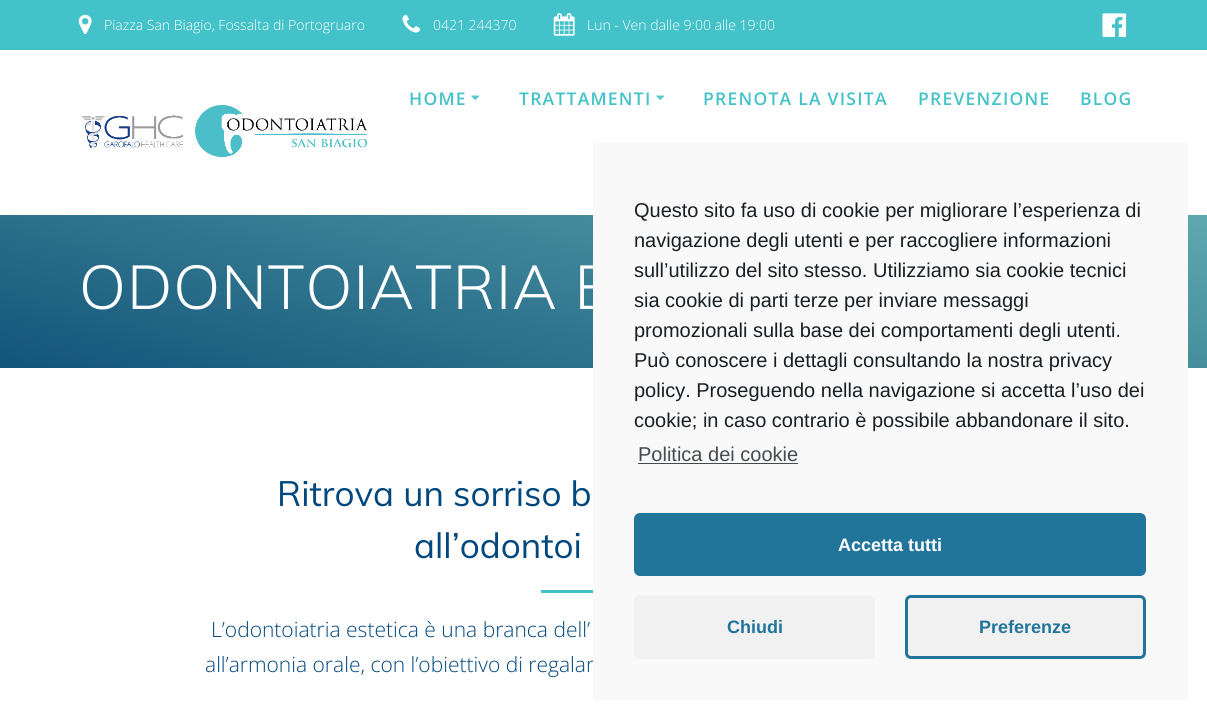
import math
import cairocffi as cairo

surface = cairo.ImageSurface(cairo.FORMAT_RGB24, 1207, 720)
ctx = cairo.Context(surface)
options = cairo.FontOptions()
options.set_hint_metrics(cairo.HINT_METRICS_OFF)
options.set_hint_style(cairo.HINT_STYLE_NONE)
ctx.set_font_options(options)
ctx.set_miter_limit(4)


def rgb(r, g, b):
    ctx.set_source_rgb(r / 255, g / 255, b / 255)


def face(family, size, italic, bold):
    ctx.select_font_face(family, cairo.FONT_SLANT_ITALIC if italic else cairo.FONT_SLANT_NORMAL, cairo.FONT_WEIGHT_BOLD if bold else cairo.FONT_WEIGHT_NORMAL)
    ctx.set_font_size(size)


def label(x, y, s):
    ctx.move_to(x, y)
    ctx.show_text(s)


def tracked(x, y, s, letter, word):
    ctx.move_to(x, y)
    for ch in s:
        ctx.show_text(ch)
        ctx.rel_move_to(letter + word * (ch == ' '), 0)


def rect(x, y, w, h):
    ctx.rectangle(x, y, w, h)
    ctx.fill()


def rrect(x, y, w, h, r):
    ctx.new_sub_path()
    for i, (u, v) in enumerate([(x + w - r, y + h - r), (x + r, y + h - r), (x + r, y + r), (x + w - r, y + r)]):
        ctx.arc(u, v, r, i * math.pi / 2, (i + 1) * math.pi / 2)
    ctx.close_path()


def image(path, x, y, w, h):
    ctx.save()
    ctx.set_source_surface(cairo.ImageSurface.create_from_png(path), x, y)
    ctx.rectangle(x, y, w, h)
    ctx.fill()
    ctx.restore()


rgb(255, 255, 255)
ctx.paint()
rgb(68, 194, 201)
rect(0, 0, 1207, 50)
image('image0.png', 78, 14, 14, 21)
face('Open Sans Light', 14, 0, 0)
rgb(255, 255, 255)
label(104, 30, 'Piazza San Biagio, Fossalta di Portogruaro')
image('image1.png', 402, 14, 19, 19)
label(433, 30, '0421 244370')
image('image2.png', 553, 13, 22, 23)
label(587, 30, 'Lun - Ven dalle 9:00 alle 19:00')
image('image3.png', 1102, 13, 25, 24)
face('Open Sans SemiBold', 17.5, 0, 0)
rgb(68, 194, 201)
tracked(409, 105, 'HOME', 1.25, 0)
image('image4.png', 471, 95, 9, 5)
tracked(519, 105, 'TRATTAMENTI', 1.25, 0)
image('image4.png', 656, 95, 9, 5)
tracked(703, 105, 'PRENOTA LA VISITA', 1.25, 0)
tracked(918, 105, 'PREVENZIONE', 1.25, 0)
tracked(1080, 105, 'BLOG', 1.25, 0)
image('image5.png', 81, 105, 287, 53)
gradient = cairo.LinearGradient(517, 506, 690, -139)
gradient.add_color_stop_rgba(0, 0.075, 0.329, 0.478, 1)
gradient.add_color_stop_rgba(1, 0.502, 0.816, 0.78, 1)
ctx.set_source(gradient)
rect(0, 215, 1207, 153)
face('Muli Light', 61.25, 0, 0)
rgb(255, 255, 255)
tracked(79, 309, 'ODONTOIATRIA E', 1.1, 0)
face('Muli', 35, 0, 0)
rgb(0, 71, 125)
label(277, 506, 'Ritrova un sorriso b')
label(414, 558, 'all’odontoi')
rgb(68, 194, 201)
rect(541, 590, 52, 3)
face('Open Sans Light', 21, 0, 0)
rgb(0, 71, 125)
label(211, 637, 'L’odontoiatria estetica è una branca dell’')
label(205, 672, 'all’armonia orale, con l’obiettivo di regalar')
rgb(249, 249, 249)
rect(593, 143, 595, 557)
face('Liberation Sans', 20, 0, 0)
rgb(25, 30, 35)
label(634, 217, 'Questo sito fa uso di cookie per migliorare l’esperienza di')
label(634, 247, 'navigazione degli utenti e per raccogliere informazioni')
label(634, 277, 'sull’utilizzo del sito stesso. Utilizziamo sia cookie tecnici')
label(634, 307, 'sia cookie di parti terze per inviare messaggi')
label(634, 337, 'promozionali sulla base dei comportamenti degli utenti.')
label(634, 367, 'Può conoscere i dettagli consultando la nostra privacy')
label(634, 397, 'policy. Proseguendo nella navigazione si accetta l’uso dei')
label(634, 427, 'cookie; in caso contrario è possibile abbandonare il sito.')
rgb(70, 74, 78)
label(638, 461, 'Politica dei cookie')
rect(638, 463, 160, 1)
rgb(33, 117, 155)
rrect(635.5, 514.5, 509, 60, 4.5)
ctx.fill_preserve()
ctx.set_line_width(3)
ctx.stroke()
face('Liberation Sans', 18, 0, 1)
rgb(255, 255, 255)
label(838, 551, 'Accetta tutti')
rgb(241, 241, 241)
rrect(634, 595, 241, 64, 6)
ctx.fill()
rgb(33, 117, 155)
label(727, 633, 'Chiudi')
rgb(241, 241, 241)
rrect(906.5, 596.5, 238, 61, 4.5)
ctx.fill_preserve()
rgb(33, 117, 155)
ctx.stroke()
label(979, 633, 'Preferenze')
surface.write_to_png('render.png')
